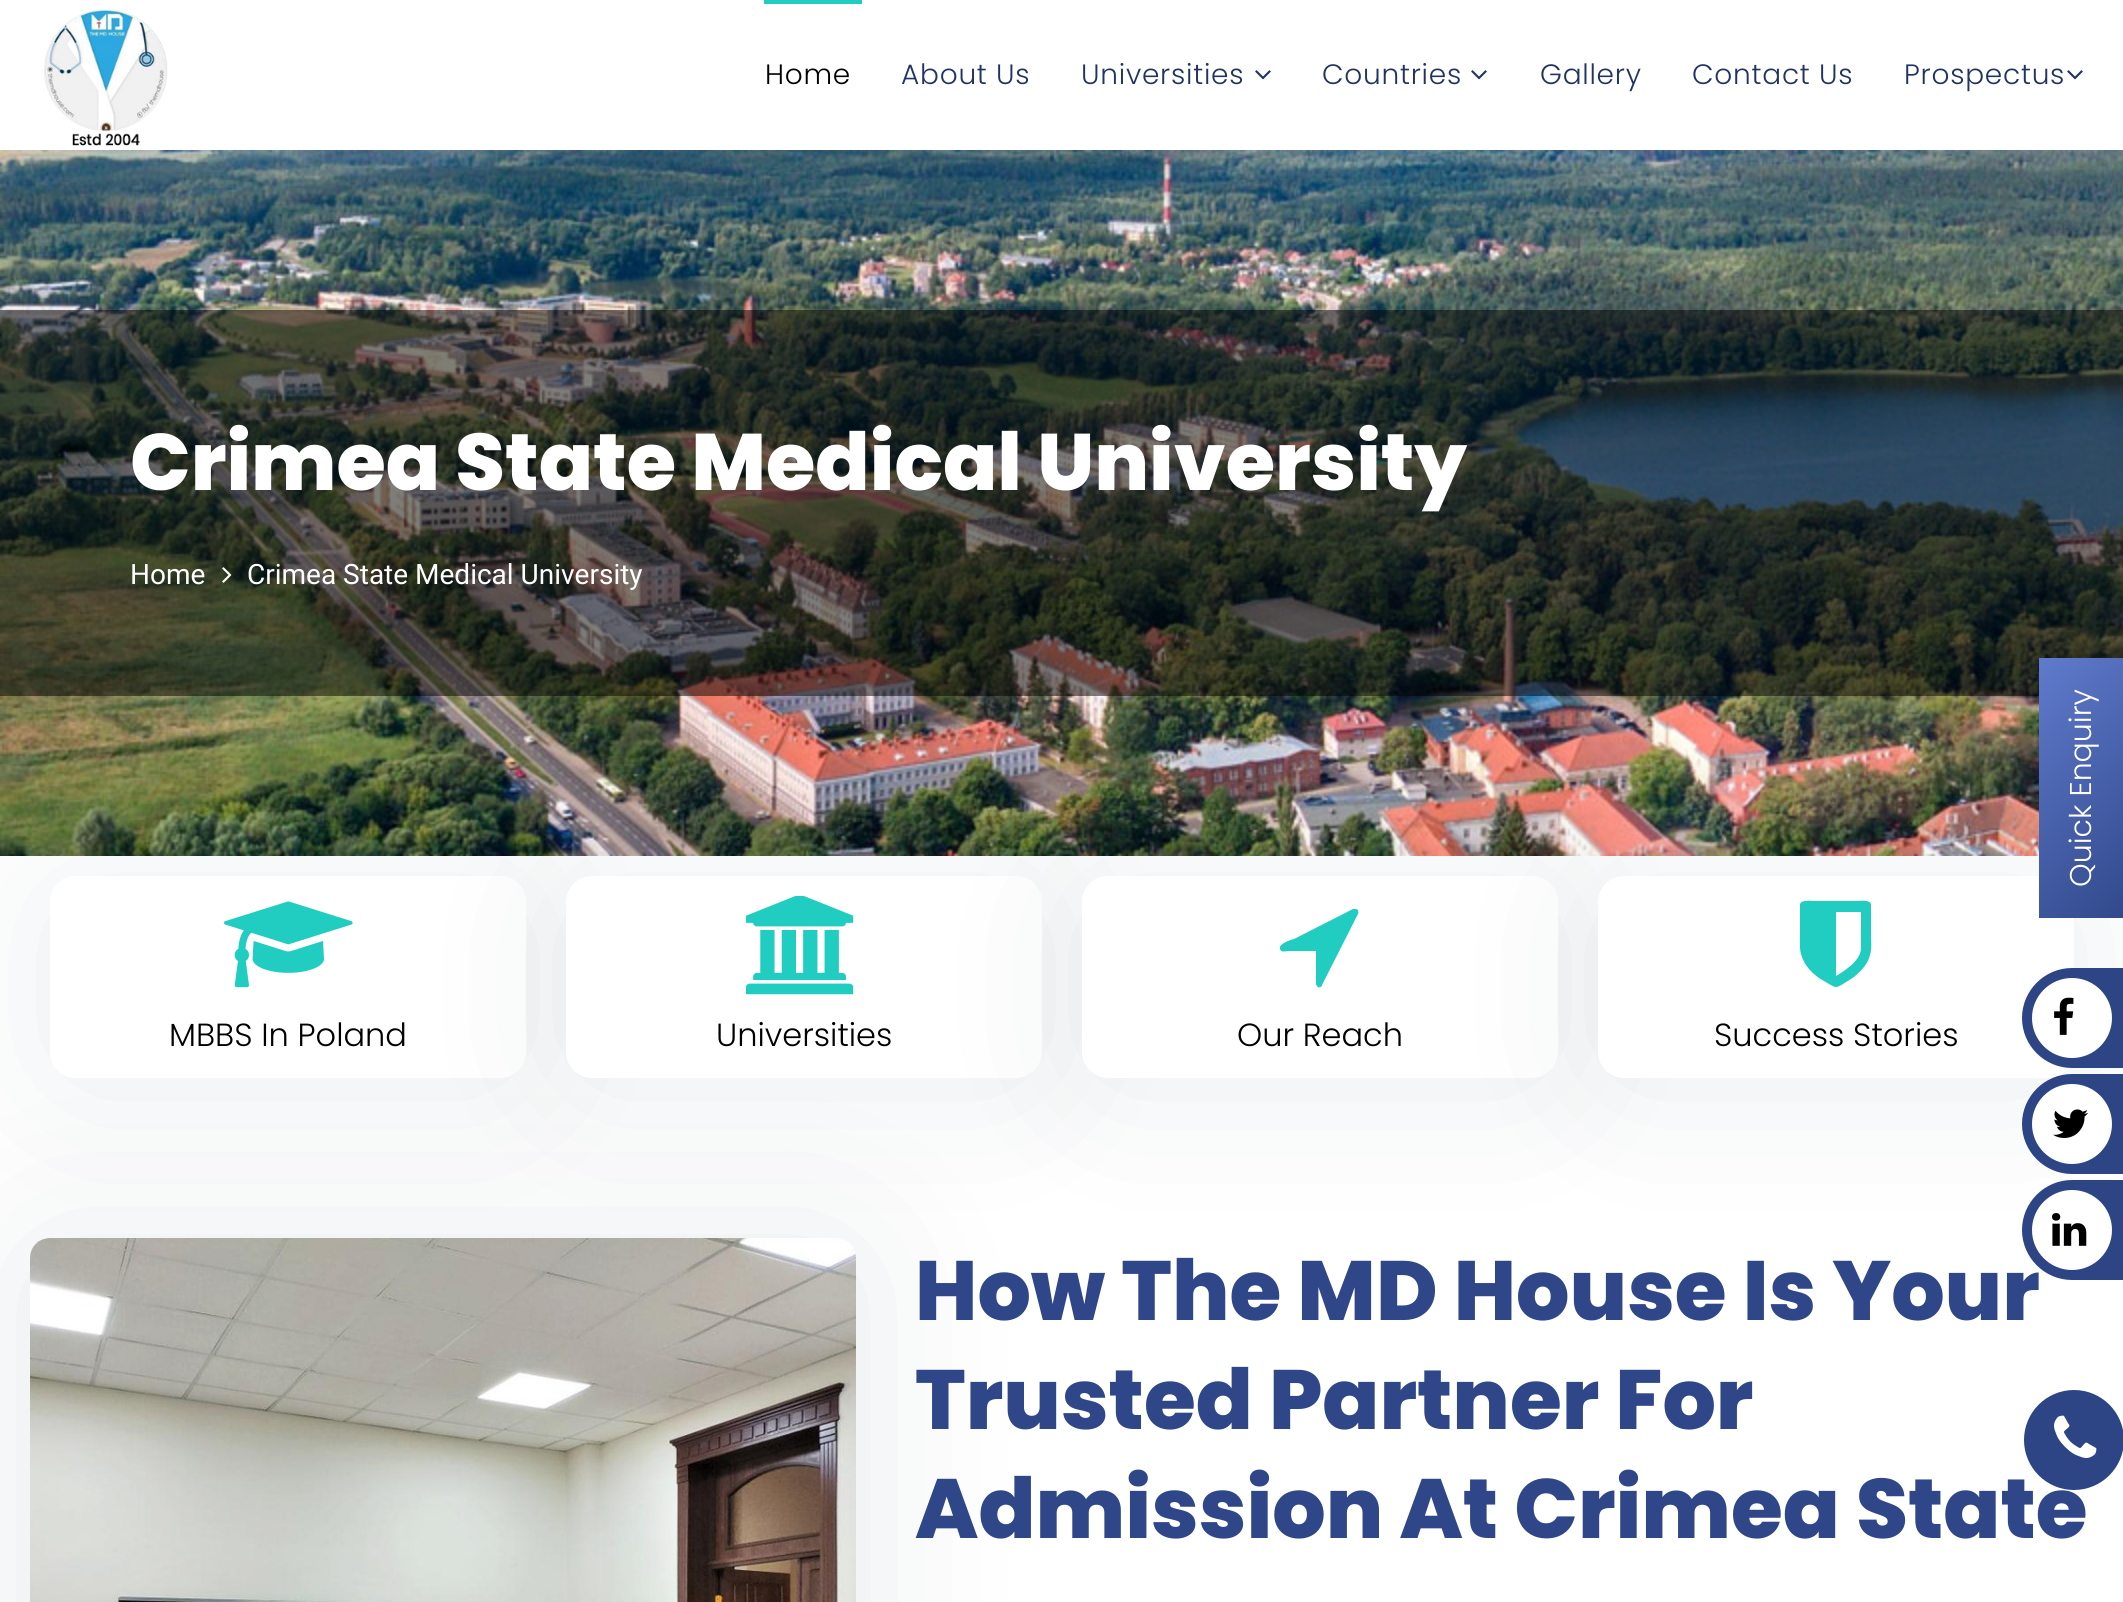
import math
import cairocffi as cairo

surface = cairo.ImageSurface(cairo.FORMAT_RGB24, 2123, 1602)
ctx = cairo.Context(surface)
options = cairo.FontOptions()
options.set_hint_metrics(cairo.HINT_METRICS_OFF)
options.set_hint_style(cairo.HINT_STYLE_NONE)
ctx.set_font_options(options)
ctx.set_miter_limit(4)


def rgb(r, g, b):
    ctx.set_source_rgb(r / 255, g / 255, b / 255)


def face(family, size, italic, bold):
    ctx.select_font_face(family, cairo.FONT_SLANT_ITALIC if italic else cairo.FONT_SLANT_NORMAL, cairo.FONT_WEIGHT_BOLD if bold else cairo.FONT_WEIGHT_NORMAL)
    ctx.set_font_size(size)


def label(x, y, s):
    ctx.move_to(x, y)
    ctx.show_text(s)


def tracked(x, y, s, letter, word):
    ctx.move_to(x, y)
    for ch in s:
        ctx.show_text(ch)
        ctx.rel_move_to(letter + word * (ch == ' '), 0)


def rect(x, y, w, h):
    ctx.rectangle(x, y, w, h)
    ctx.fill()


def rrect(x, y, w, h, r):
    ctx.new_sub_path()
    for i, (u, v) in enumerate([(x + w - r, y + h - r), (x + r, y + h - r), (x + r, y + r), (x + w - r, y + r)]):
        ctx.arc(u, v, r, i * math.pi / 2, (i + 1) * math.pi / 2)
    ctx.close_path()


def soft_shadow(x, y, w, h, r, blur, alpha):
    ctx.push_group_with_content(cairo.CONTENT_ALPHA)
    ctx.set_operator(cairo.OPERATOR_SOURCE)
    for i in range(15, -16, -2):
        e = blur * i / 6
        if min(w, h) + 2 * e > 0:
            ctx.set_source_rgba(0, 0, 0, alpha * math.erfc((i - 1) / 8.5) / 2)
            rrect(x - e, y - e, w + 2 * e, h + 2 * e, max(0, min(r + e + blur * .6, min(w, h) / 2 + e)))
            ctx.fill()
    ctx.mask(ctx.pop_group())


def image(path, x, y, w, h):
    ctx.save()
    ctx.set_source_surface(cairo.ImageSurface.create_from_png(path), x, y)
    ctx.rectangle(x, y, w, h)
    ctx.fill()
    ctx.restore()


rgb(255, 255, 255)
ctx.paint()
image('image2.png', 0, 150, 2123, 706)
ctx.set_source_rgba(0, 0, 0, 0.5)
rect(0, 310, 2123, 386)
ctx.save()
ctx.rectangle(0, 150, 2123, 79)
ctx.clip()
rgb(9, 29, 62)
soft_shadow(0, 10, 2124, 150, 0, 83, 0.1)
ctx.restore()
image('image0.png', 44, 9, 124, 137)
rgb(33, 205, 192)
rect(764, 0, 98, 4)
face('Poppins Light', 28, 0, 0)
rgb(0, 0, 0)
tracked(765, 84, 'Home', 0.75, 0)
rgb(33, 51, 96)
tracked(901, 84, 'About Us', 0.75, 0)
tracked(1081, 84, 'Universities', 0.75, 0)
image('image1.png', 1255, 70, 16, 10)
tracked(1322, 84, 'Countries', 0.75, 0)
image('image1.png', 1471, 70, 16, 10)
tracked(1540, 84, 'Gallery', 0.75, 0)
tracked(1692, 84, 'Contact Us', 0.75, 0)
tracked(1904, 84, 'Prospectus', 0.75, 0)
image('image1.png', 2067, 70, 16, 10)
face('Poppins ExtraBold', 80, 0, 0)
rgb(255, 255, 255)
label(130, 490, 'Crimea State Medical University')
face('Roboto', 28, 0, 0)
label(130, 584, 'Home')
image('image3.png', 222, 567, 10, 16)
label(247, 584, 'Crimea State Medical University')
ctx.save()
ctx.set_fill_rule(cairo.FILL_RULE_EVEN_ODD)
ctx.new_path()
ctx.move_to(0, 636)
ctx.line_to(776, 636)
ctx.line_to(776, 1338)
ctx.line_to(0, 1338)
ctx.close_path()
ctx.move_to(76, 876)
ctx.line_to(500, 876)
ctx.curve_to(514.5, 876, 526, 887.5, 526, 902)
ctx.line_to(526, 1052)
ctx.curve_to(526, 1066.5, 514.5, 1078, 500, 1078)
ctx.line_to(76, 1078)
ctx.curve_to(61.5, 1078, 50, 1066.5, 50, 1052)
ctx.line_to(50, 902)
ctx.curve_to(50, 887.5, 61.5, 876, 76, 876)
ctx.close_path()
ctx.clip()
rgb(9, 29, 62)
soft_shadow(50, 886, 476, 202, 26, 83, 0.08)
ctx.restore()
image('image4.png', 224, 901, 129, 87)
rgb(9, 29, 62)
soft_shadow(566, 886, 476, 202, 26, 83, 0.08)
rgb(255, 255, 255)
rrect(566, 876, 476, 202, 26)
ctx.fill()
image('image5.png', 746, 896, 108, 99)
rgb(9, 29, 62)
soft_shadow(1082, 886, 476, 202, 26, 83, 0.08)
rgb(255, 255, 255)
rrect(1082, 876, 476, 202, 26)
ctx.fill()
rgb(33, 205, 192)
ctx.new_path()
ctx.move_to(1358, 914)
ctx.line_to(1322, 985)
ctx.curve_to(1322, 987, 1319, 988, 1318, 987)
ctx.curve_to(1315, 985, 1316, 981, 1316, 978)
ctx.line_to(1316, 951)
ctx.line_to(1289, 951)
ctx.curve_to(1286, 951, 1281, 953, 1280, 949)
ctx.curve_to(1278, 943, 1294, 939, 1294, 939)
ctx.line_to(1353, 909)
ctx.line_to(1356, 909)
ctx.curve_to(1358, 909, 1359, 912, 1358, 914)
ctx.close_path()
ctx.fill()
rgb(9, 29, 62)
soft_shadow(1598, 886, 476, 202, 26, 83, 0.08)
rgb(255, 255, 255)
rrect(1598, 876, 476, 202, 26)
ctx.fill()
gradient = cairo.LinearGradient(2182, 879, 2000, 697)
gradient.add_color_stop_rgba(0, 0.184, 0.275, 0.533, 1)
gradient.add_color_stop_rgba(1, 0.376, 0.482, 0.804, 1)
ctx.set_source(gradient)
rect(2039, 658, 84, 260)
face('Poppins Light', 30, 0, 0)
rgb(255, 255, 255)
ctx.save()
ctx.translate(2091, 887)
ctx.rotate(-90 * math.pi / 180)
label(0, 0, 'Quick Enquiry')
ctx.restore()
face('Poppins Light', 32, 0, 0)
rgb(0, 0, 0)
label(169, 1046, 'MBBS In Poland')
label(716, 1046, 'Universities')
label(1237, 1046, 'Our Reach')
rgb(33, 205, 192)
ctx.new_path()
ctx.move_to(1861, 948)
ctx.line_to(1861, 912)
ctx.line_to(1836, 912)
ctx.line_to(1836, 976)
ctx.curve_to(1846, 970, 1861, 960, 1861, 948)
ctx.close_path()
ctx.move_to(1871, 905)
ctx.line_to(1871, 934)
ctx.curve_to(1871, 941, 1872, 948, 1870, 955)
ctx.curve_to(1868, 964, 1861, 971, 1854, 977)
ctx.line_to(1843, 984)
ctx.curve_to(1836, 988, 1836, 988, 1829, 984)
ctx.line_to(1819, 978)
ctx.curve_to(1812, 973, 1805, 966, 1802, 957)
ctx.curve_to(1799, 950, 1800, 941, 1800, 934)
ctx.line_to(1800, 905)
ctx.curve_to(1800, 899, 1813, 901, 1814, 901)
ctx.line_to(1857, 901)
ctx.curve_to(1858, 901, 1871, 899, 1871, 905)
ctx.close_path()
ctx.fill()
rgb(0, 0, 0)
label(1714, 1046, 'Success Stories')
rgb(46, 69, 133)
ctx.new_path()
ctx.move_to(2072, 968)
ctx.line_to(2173, 968)
ctx.line_to(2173, 1068)
ctx.line_to(2072, 1068)
ctx.curve_to(2044.5, 1068, 2022, 1045.5, 2022, 1018)
ctx.curve_to(2022, 990.5, 2044.5, 968, 2072, 968)
ctx.close_path()
ctx.fill()
rgb(255, 255, 255)
ctx.arc(2072, 1018, 40, 0, 2 * math.pi)
ctx.fill()
image('image6.png', 2054, 997, 20, 38)
rgb(46, 69, 133)
ctx.new_path()
ctx.move_to(2072, 1074)
ctx.line_to(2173, 1074)
ctx.line_to(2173, 1174)
ctx.line_to(2072, 1174)
ctx.curve_to(2044.5, 1174, 2022, 1151.5, 2022, 1124)
ctx.curve_to(2022, 1096.5, 2044.5, 1074, 2072, 1074)
ctx.close_path()
ctx.fill()
rgb(255, 255, 255)
ctx.arc(2072, 1124, 40, 0, 2 * math.pi)
ctx.fill()
image('image7.png', 2053, 1109, 35, 29)
rgb(9, 29, 62)
soft_shadow(30, 1248, 826, 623, 20, 83, 0.1)
face('Poppins ExtraBold', 84, 0, 0)
rgb(47, 70, 136)
label(915, 1320, 'How The MD House Is Your')
rgb(46, 69, 133)
ctx.new_path()
ctx.move_to(2072, 1180)
ctx.line_to(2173, 1180)
ctx.line_to(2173, 1280)
ctx.line_to(2072, 1280)
ctx.curve_to(2044.5, 1280, 2022, 1257.5, 2022, 1230)
ctx.curve_to(2022, 1202.5, 2044.5, 1180, 2072, 1180)
ctx.close_path()
ctx.fill()
rgb(255, 255, 255)
ctx.arc(2072, 1230, 40, 0, 2 * math.pi)
ctx.fill()
image('image8.png', 2052, 1213, 35, 33)
image('image9.png', 30, 1238, 826, 364)
rgb(47, 70, 136)
label(915, 1429, 'Trusted Partner For')
label(915, 1538, 'Admission At Crimea State')
rgb(46, 69, 133)
ctx.new_path()
ctx.arc(2074, 1440, 50, 0, 2 * math.pi)
ctx.fill()
image('image10.png', 2054, 1415, 43, 43)
surface.write_to_png('render.png')
